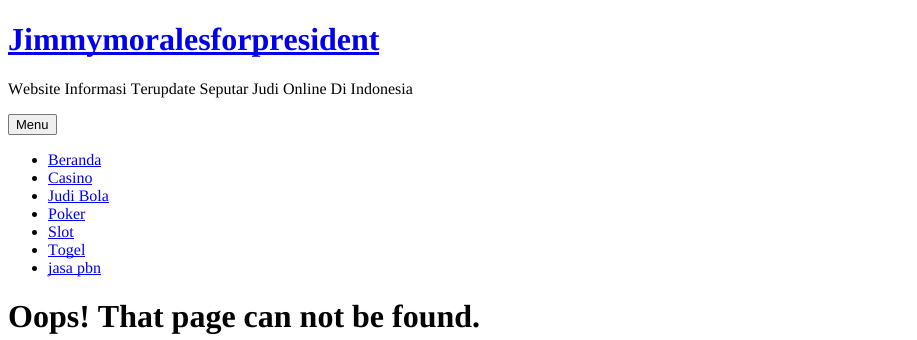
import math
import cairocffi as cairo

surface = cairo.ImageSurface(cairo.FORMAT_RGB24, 917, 340)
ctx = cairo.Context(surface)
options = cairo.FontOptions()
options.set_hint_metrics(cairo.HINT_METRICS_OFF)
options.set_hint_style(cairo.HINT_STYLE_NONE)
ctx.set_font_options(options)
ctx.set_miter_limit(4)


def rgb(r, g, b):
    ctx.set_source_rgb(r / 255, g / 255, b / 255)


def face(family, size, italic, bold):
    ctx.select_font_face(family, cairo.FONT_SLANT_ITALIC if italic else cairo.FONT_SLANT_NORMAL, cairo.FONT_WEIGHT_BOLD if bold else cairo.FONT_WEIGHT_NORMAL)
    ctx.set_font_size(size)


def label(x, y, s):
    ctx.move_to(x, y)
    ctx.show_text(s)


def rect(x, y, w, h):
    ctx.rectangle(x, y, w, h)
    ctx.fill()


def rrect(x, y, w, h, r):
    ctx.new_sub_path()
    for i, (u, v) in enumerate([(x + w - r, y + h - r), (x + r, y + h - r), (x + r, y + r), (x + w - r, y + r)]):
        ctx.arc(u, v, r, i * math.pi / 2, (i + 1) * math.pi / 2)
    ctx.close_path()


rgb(255, 255, 255)
ctx.paint()
rgb(0, 0, 238)
rect(8, 52, 371, 3)
face('Liberation Serif', 32, 0, 1)
label(8, 50, 'Jimmymoralesforpresident')
face('Liberation Serif', 16, 0, 0)
rgb(0, 0, 0)
label(8, 94, 'Website Informasi Terupdate Seputar Judi Online Di Indonesia')
rgb(239, 239, 239)
rrect(8.5, 114.5, 48, 20, 1.5)
ctx.fill_preserve()
rgb(118, 118, 118)
ctx.set_line_width(1)
ctx.stroke()
face('Liberation Sans', 13, 0, 0)
rgb(0, 0, 0)
label(16, 129, 'Menu')
ctx.new_path()
ctx.arc(34.5, 160.5, 2.5, 0, 2 * math.pi)
ctx.fill()
face('Liberation Serif', 16, 0, 0)
rgb(0, 0, 238)
label(48, 165, 'Beranda')
rect(48, 166, 53, 1)
rgb(0, 0, 0)
ctx.new_path()
ctx.arc(34.5, 178.5, 2.5, 0, 2 * math.pi)
ctx.fill()
rgb(0, 0, 238)
label(48, 183, 'Casino')
rect(48, 184, 44, 1)
rgb(0, 0, 0)
ctx.new_path()
ctx.arc(34.5, 196.5, 2.5, 0, 2 * math.pi)
ctx.fill()
rgb(0, 0, 238)
label(48, 201, 'Judi Bola')
rect(48, 202, 61, 1)
rgb(0, 0, 0)
ctx.new_path()
ctx.arc(34.5, 214.5, 2.5, 0, 2 * math.pi)
ctx.fill()
rgb(0, 0, 238)
label(48, 219, 'Poker')
rect(48, 220, 37, 1)
rgb(0, 0, 0)
ctx.new_path()
ctx.arc(34.5, 232.5, 2.5, 0, 2 * math.pi)
ctx.fill()
rgb(0, 0, 238)
label(48, 237, 'Slot')
rect(48, 238, 26, 1)
rgb(0, 0, 0)
ctx.new_path()
ctx.arc(34.5, 250.5, 2.5, 0, 2 * math.pi)
ctx.fill()
rgb(0, 0, 238)
rect(48, 256, 37, 1)
label(48, 255, 'Togel')
rgb(0, 0, 0)
ctx.new_path()
ctx.arc(34.5, 268.5, 2.5, 0, 2 * math.pi)
ctx.fill()
rgb(0, 0, 238)
rect(48, 274, 53, 1)
label(48, 273, 'jasa pbn')
face('Liberation Serif', 32, 0, 1)
rgb(0, 0, 0)
label(8, 327, 'Oops! That page can not be found.')
surface.write_to_png('render.png')
